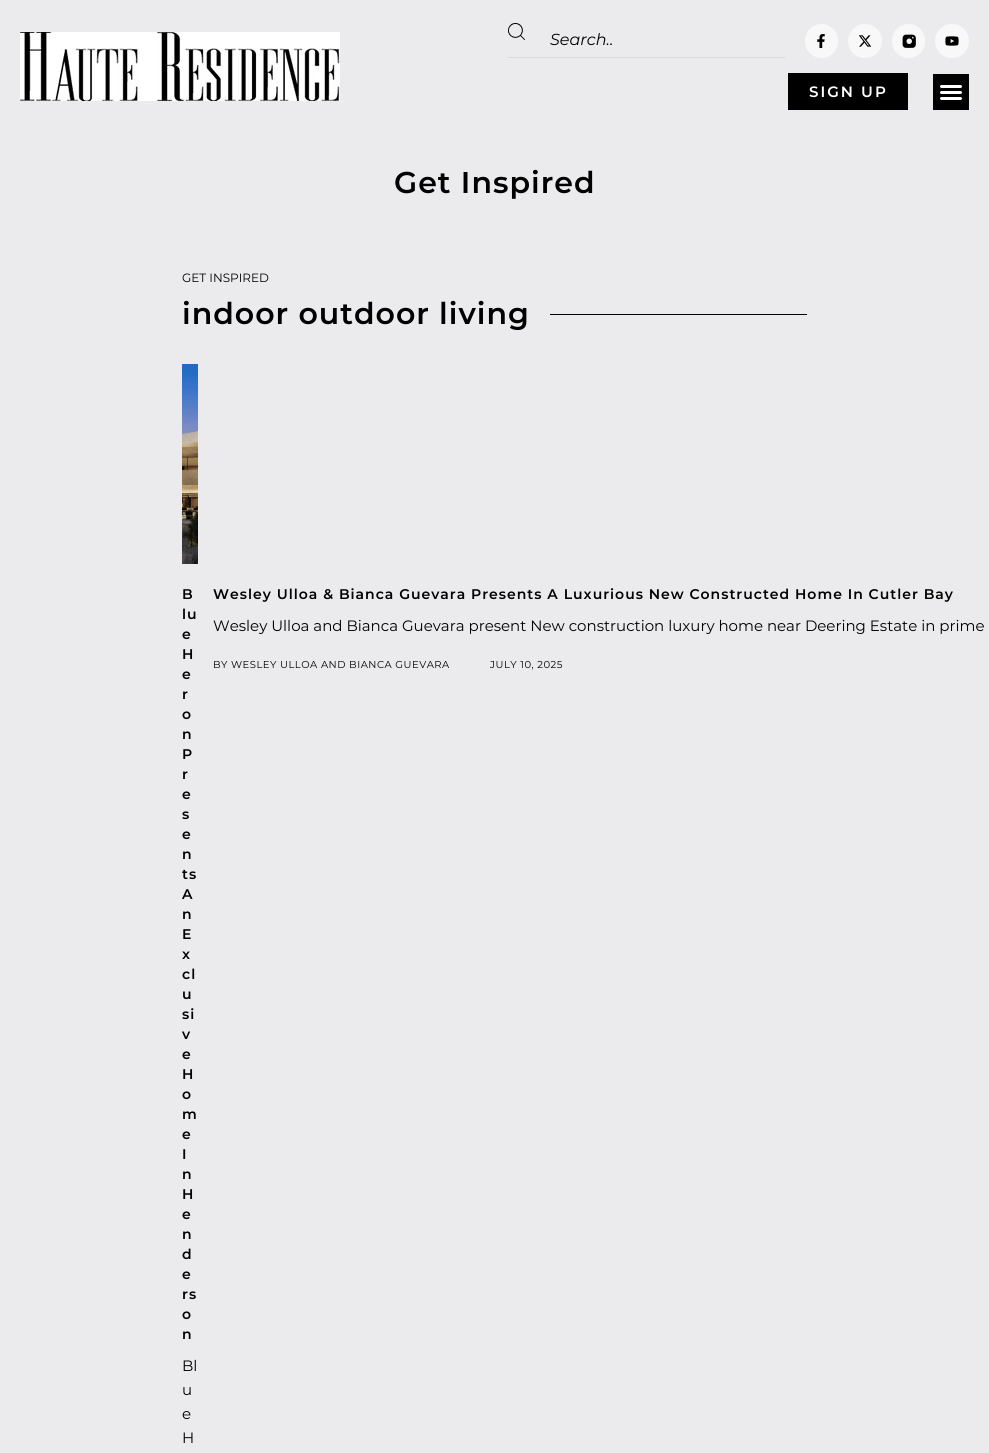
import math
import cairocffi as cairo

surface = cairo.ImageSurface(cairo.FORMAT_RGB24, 989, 1453)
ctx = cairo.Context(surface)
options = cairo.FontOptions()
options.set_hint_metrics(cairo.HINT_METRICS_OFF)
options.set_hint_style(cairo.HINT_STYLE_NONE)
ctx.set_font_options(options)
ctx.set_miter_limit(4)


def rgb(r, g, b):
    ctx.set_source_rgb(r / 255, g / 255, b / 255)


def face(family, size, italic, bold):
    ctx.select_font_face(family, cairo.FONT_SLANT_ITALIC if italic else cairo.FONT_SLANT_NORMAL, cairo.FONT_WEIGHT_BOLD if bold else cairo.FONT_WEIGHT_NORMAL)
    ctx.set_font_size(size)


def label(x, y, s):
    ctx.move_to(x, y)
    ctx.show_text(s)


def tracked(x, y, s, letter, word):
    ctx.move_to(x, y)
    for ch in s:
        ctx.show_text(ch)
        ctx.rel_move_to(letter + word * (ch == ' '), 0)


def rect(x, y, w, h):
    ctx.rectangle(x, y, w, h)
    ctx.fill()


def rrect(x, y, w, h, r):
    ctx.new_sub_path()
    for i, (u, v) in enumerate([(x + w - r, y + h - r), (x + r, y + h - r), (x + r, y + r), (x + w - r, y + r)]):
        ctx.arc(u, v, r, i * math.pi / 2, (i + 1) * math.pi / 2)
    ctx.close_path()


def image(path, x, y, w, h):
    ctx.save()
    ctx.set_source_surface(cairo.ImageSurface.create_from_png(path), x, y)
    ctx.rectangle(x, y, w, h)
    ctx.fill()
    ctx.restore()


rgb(235, 235, 237)
ctx.paint()
image('image0.png', 20, 32, 320, 69)
image('image1.png', 508, 23, 17, 17)
rgb(217, 217, 220)
rect(508, 57, 277, 1)
face('Montserrat', 16, 1, 0)
rgb(0, 0, 0)
label(550, 45, 'Search..')
rgb(248, 248, 248)
rrect(805, 24, 33, 34, 16.5)
ctx.fill()
image('image2.png', 817, 34, 8, 14)
ctx.arc(865, 41, 17, 0, 2 * math.pi)
ctx.fill()
image('image3.png', 858, 35, 14, 12)
rrect(892, 24, 33, 34, 16.5)
ctx.fill()
image('image4.png', 902, 34, 14, 14)
ctx.arc(952, 41, 17, 0, 2 * math.pi)
ctx.fill()
image('image5.png', 945, 36, 14, 10)
rgb(0, 0, 0)
rect(788, 73, 120, 37)
face('Montserrat SemiBold', 15, 0, 0)
rgb(255, 255, 255)
tracked(809, 97, 'SIGN UP', 2, 0)
rgb(0, 0, 0)
rect(933, 74, 36, 36)
image('image6.png', 940, 85, 22, 15)
face('Montserrat SemiBold', 30, 0, 0)
tracked(394, 193, 'Get Inspired', 1, 0)
face('Montserrat', 12, 0, 0)
label(182, 282, 'GET INSPIRED')
face('Montserrat SemiBold', 30, 0, 0)
tracked(182, 324, 'indoor outdoor living', 1, 0)
rect(550, 314, 257, 1)
image('image7.png', 182, 364, 16, 200)
face('Montserrat SemiBold', 14, 0, 0)
tracked(182, 599, 'B', 1, 0)
tracked(182, 619, 'lu', 1, 0)
tracked(182, 639, 'e', 1, 0)
tracked(182, 659, 'H', 1, 0)
tracked(182, 679, 'e', 1, 0)
tracked(182, 699, 'r', 1, 0)
tracked(182, 719, 'o', 1, 0)
tracked(182, 739, 'n', 1, 0)
tracked(182, 759, 'P', 1, 0)
tracked(182, 779, 'r', 1, 0)
tracked(182, 799, 'e', 1, 0)
tracked(182, 819, 's', 1, 0)
tracked(182, 839, 'e', 1, 0)
tracked(182, 859, 'n', 1, 0)
tracked(182, 879, 'ts', 1, 0)
tracked(182, 899, 'A', 1, 0)
tracked(182, 919, 'n', 1, 0)
tracked(182, 939, 'E', 1, 0)
tracked(182, 959, 'x', 1, 0)
tracked(182, 979, 'cl', 1, 0)
tracked(182, 999, 'u', 1, 0)
tracked(182, 1019, 'si', 1, 0)
tracked(182, 1039, 'v', 1, 0)
tracked(182, 1059, 'e', 1, 0)
tracked(182, 1079, 'H', 1, 0)
tracked(182, 1099, 'o', 1, 0)
tracked(182, 1119, 'm', 1, 0)
tracked(182, 1139, 'e', 1, 0)
tracked(182, 1159, 'I', 1, 0)
tracked(182, 1179, 'n', 1, 0)
tracked(182, 1199, 'H', 1, 0)
tracked(182, 1219, 'e', 1, 0)
tracked(182, 1239, 'n', 1, 0)
tracked(182, 1259, 'd', 1, 0)
tracked(182, 1279, 'e', 1, 0)
tracked(182, 1299, 'rs', 1, 0)
tracked(182, 1319, 'o', 1, 0)
tracked(182, 1339, 'n', 1, 0)
face('Montserrat', 15, 0, 0)
label(182, 1371, 'Bl')
label(182, 1395, 'u')
label(182, 1419, 'e')
label(182, 1443, 'H')
face('Montserrat SemiBold', 14, 0, 0)
tracked(213, 599, 'Wesley Ulloa & Bianca Guevara Presents A Luxurious New Constructed Home In Cutler Bay', 1, 0)
face('Montserrat', 15, 0, 0)
label(213, 631, 'Wesley Ulloa and Bianca Guevara present New construction luxury home near Deering Estate in prime')
face('Montserrat', 10, 0, 0)
tracked(213, 668, 'BY WESLEY ULLOA AND BIANCA GUEVARA', 0.5, 0)
tracked(490, 668, 'JULY 10, 2025', 0.5, 0)
surface.write_to_png('render.png')
